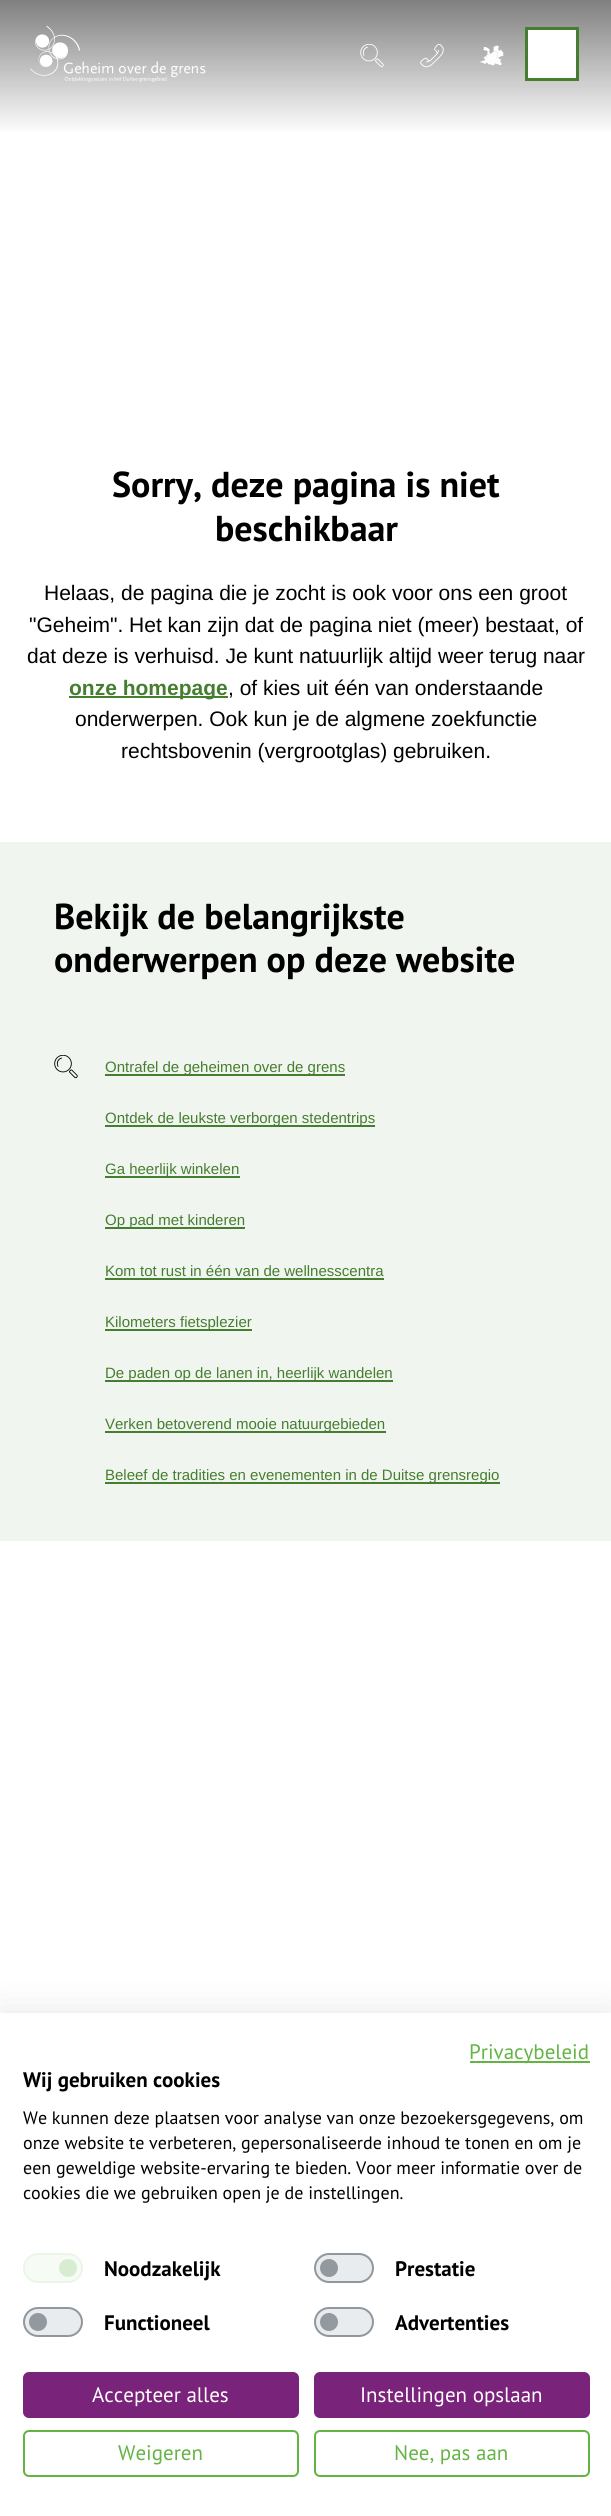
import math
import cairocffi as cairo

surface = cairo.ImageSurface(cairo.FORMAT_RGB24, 611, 2516)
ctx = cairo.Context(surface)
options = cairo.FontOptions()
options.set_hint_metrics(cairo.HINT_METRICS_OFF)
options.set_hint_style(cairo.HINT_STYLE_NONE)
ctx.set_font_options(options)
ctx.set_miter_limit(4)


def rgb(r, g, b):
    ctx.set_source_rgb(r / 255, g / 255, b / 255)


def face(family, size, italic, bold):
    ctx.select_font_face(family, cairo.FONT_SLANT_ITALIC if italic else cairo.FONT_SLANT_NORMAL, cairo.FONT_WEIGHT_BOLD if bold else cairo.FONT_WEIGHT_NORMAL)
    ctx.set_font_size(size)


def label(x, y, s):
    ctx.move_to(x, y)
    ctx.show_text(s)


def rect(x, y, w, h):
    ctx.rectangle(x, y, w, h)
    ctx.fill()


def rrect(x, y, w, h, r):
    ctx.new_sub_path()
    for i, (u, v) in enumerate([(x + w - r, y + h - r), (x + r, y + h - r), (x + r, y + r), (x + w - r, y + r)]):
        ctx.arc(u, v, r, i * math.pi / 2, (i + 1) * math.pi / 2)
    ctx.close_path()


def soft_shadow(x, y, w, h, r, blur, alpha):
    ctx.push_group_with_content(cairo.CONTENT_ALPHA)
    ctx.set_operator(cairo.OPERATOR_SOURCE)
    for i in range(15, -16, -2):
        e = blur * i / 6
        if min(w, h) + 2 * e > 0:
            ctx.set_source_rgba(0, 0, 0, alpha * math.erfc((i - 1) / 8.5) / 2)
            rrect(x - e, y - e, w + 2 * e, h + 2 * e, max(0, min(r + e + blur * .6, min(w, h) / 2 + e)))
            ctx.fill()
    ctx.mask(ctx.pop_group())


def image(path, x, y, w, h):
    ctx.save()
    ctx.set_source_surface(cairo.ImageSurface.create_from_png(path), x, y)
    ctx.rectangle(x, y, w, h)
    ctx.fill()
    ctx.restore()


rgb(255, 255, 255)
ctx.paint()
gradient = cairo.LinearGradient(306, 0, 306, 135)
gradient.add_color_stop_rgba(0, 0.502, 0.502, 0.502, 1)
gradient.add_color_stop_rgba(1, 1, 1, 1, 1)
ctx.set_source(gradient)
rect(0, 0, 611, 132)
image('image0.png', 30, 25, 176, 58)
image('image1.png', 360, 44, 24, 24)
image('image2.png', 420, 44, 24, 24)
image('image3.png', 480, 45, 24, 21)
rgb(255, 255, 255)
ctx.rectangle(526.5, 28.5, 51, 51)
ctx.fill_preserve()
rgb(70, 126, 48)
ctx.set_line_width(3)
ctx.stroke()
face('PT Sans', 36, 0, 1)
rgb(0, 0, 0)
label(112, 497, 'Sorry, deze pagina is niet')
label(215, 541, 'beschikbaar')
face('Liberation Sans', 21, 0, 0)
label(44, 600, 'Helaas, de pagina die je zocht is ook voor ons een groot')
label(29, 632, '"Geheim". Het kan zijn dat de pagina niet (meer) bestaat, of')
label(27, 663, 'dat deze is verhuisd. Je kunt natuurlijk altijd weer terug naar')
rgb(70, 126, 48)
rect(69, 696, 159, 2)
face('Liberation Sans', 21, 0, 1)
label(69, 695, 'onze homepage')
face('Liberation Sans', 21, 0, 0)
rgb(0, 0, 0)
label(228, 695, ', of kies uit één van onderstaande')
label(75, 726, 'onderwerpen. Ook kun je de algmene zoekfunctie')
label(121, 758, 'rechtsbovenin (vergrootglas) gebruiken.')
rgb(241, 245, 239)
rect(0, 842, 611, 699)
face('PT Sans', 36, 0, 1)
rgb(0, 0, 0)
label(54, 929, 'Bekijk de belangrijkste')
label(54, 972, 'onderwerpen op deze website')
image('image4.png', 54, 1055, 24, 24)
rgb(70, 126, 48)
rect(105, 1074, 240, 2)
face('Liberation Sans', 15, 0, 0)
label(105, 1072, 'Ontrafel de geheimen over de grens')
rect(105, 1125, 270, 2)
label(105, 1123, 'Ontdek de leukste verborgen stedentrips')
rect(105, 1176, 135, 2)
label(105, 1174, 'Ga heerlijk winkelen')
rect(105, 1227, 140, 2)
label(105, 1225, 'Op pad met kinderen')
label(105, 1276, 'Kom tot rust in één van de wellnesscentra')
rect(105, 1278, 279, 2)
rect(105, 1329, 147, 2)
label(105, 1327, 'Kilometers fietsplezier')
rect(105, 1380, 288, 2)
label(105, 1378, 'De paden op de lanen in, heerlijk wandelen')
rect(105, 1431, 281, 2)
label(105, 1429, 'Verken betoverend mooie natuurgebieden')
rect(105, 1482, 395, 2)
label(105, 1480, 'Beleef de tradities en evenementen in de Duitse grensregio')
rgb(0, 0, 0)
soft_shadow(0, 2013, 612, 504, 0, 18, 0.1)
rgb(255, 255, 255)
rect(0, 2013, 611, 503)
rgb(100, 180, 69)
rect(470, 2061, 120, 2)
face('PT Sans', 21, 0, 0)
label(469, 2059, 'Privacybeleid')
face('PT Sans', 21, 0, 1)
rgb(0, 0, 0)
label(23, 2087, 'Wij gebruiken cookies')
face('PT Sans', 18, 0, 0)
label(23, 2124, 'We kunnen deze plaatsen voor analyse van onze bezoekersgegevens, om')
label(23, 2149, 'onze website te verbeteren, gepersonaliseerde inhoud te tonen en om je')
label(23, 2174, 'een geweldige website-ervaring te bieden. Voor meer informatie over de')
label(23, 2199, 'cookies die we gebruiken open je de instellingen.')
rgb(247, 251, 246)
rrect(23, 2253, 60, 30, 15)
ctx.fill()
rgb(216, 236, 209)
ctx.arc(68, 2268, 9, 0, 2 * math.pi)
ctx.fill()
rrect(24, 2254, 58, 28, 14)
rgb(236, 246, 232)
ctx.set_line_width(2)
ctx.stroke()
face('PT Sans', 21, 0, 1)
rgb(0, 0, 0)
label(104, 2276, 'Noodzakelijk')
rgb(233, 236, 239)
rrect(314, 2253, 60, 30, 15)
ctx.fill()
rgb(146, 153, 159)
ctx.arc(329, 2268, 9, 0, 2 * math.pi)
ctx.fill()
rrect(315, 2254, 58, 28, 14)
ctx.set_source_rgba(0.424, 0.459, 0.49, 0.7)
ctx.stroke()
rgb(0, 0, 0)
label(395, 2276, 'Prestatie')
rgb(233, 236, 239)
rrect(23, 2307, 60, 30, 15)
ctx.fill()
rgb(146, 153, 159)
ctx.arc(38, 2322, 9, 0, 2 * math.pi)
ctx.fill()
rrect(24, 2308, 58, 28, 14)
ctx.set_source_rgba(0.424, 0.459, 0.49, 0.7)
ctx.stroke()
rgb(0, 0, 0)
label(104, 2330, 'Functioneel')
rgb(233, 236, 239)
rrect(314, 2307, 60, 30, 15)
ctx.fill()
rgb(146, 153, 159)
ctx.arc(329, 2322, 9, 0, 2 * math.pi)
ctx.fill()
rrect(315, 2308, 58, 28, 14)
ctx.set_source_rgba(0.424, 0.459, 0.49, 0.7)
ctx.stroke()
rgb(0, 0, 0)
label(395, 2330, 'Advertenties')
rgb(122, 35, 123)
rrect(24, 2373, 274, 44, 5)
ctx.fill_preserve()
ctx.stroke()
face('PT Sans', 21, 0, 0)
rgb(255, 255, 255)
label(92, 2402, 'Accepteer alles')
rgb(122, 35, 123)
rrect(315, 2373, 274, 44, 5)
ctx.fill_preserve()
ctx.stroke()
rgb(255, 255, 255)
label(360, 2402, 'Instellingen opslaan')
rrect(24, 2431, 274, 45, 5)
rgb(100, 180, 69)
ctx.stroke()
label(118, 2460, 'Weigeren')
rrect(315, 2431, 274, 45, 5)
ctx.stroke()
label(394, 2460, 'Nee, pas aan')
surface.write_to_png('render.png')
